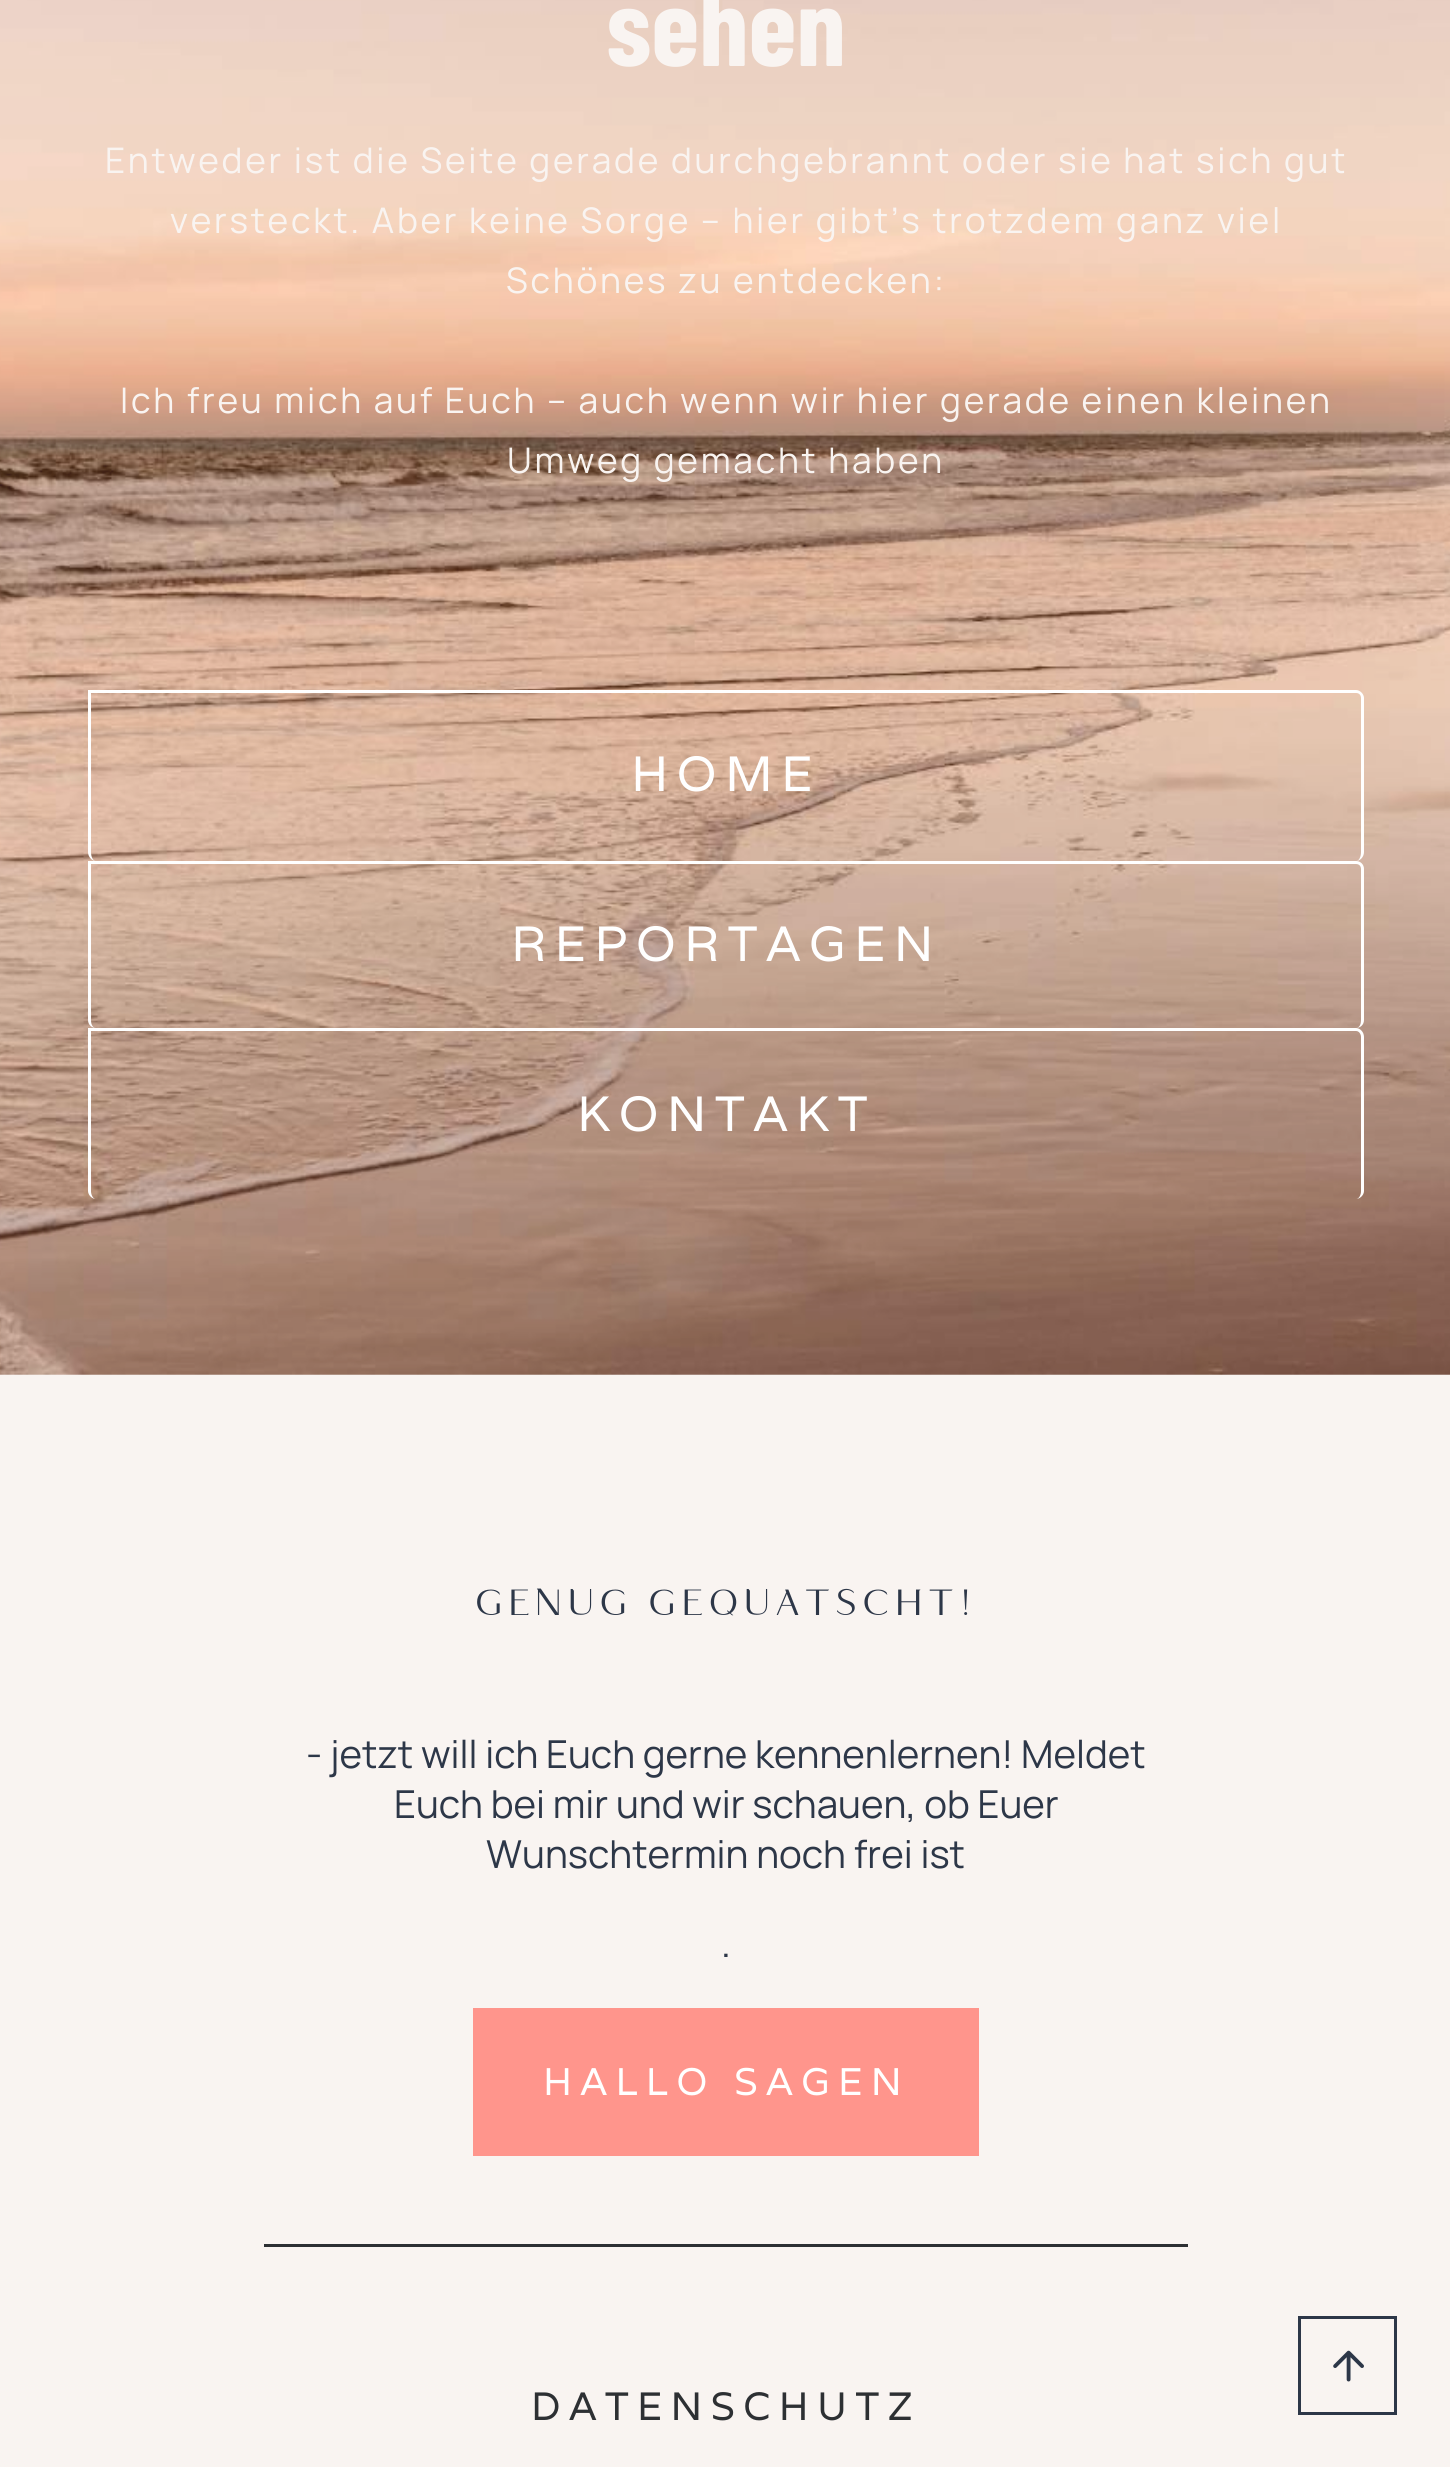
import math
import cairocffi as cairo

surface = cairo.ImageSurface(cairo.FORMAT_RGB24, 1450, 2467)
ctx = cairo.Context(surface)
options = cairo.FontOptions()
options.set_hint_metrics(cairo.HINT_METRICS_OFF)
options.set_hint_style(cairo.HINT_STYLE_NONE)
ctx.set_font_options(options)
ctx.set_miter_limit(4)


def rgb(r, g, b):
    ctx.set_source_rgb(r / 255, g / 255, b / 255)


def face(family, size, italic, bold):
    ctx.select_font_face(family, cairo.FONT_SLANT_ITALIC if italic else cairo.FONT_SLANT_NORMAL, cairo.FONT_WEIGHT_BOLD if bold else cairo.FONT_WEIGHT_NORMAL)
    ctx.set_font_size(size)


def label(x, y, s):
    ctx.move_to(x, y)
    ctx.show_text(s)


def tracked(x, y, s, letter, word):
    ctx.move_to(x, y)
    for ch in s:
        ctx.show_text(ch)
        ctx.rel_move_to(letter + word * (ch == ' '), 0)


def rect(x, y, w, h):
    ctx.rectangle(x, y, w, h)
    ctx.fill()


def image(path, x, y, w, h):
    ctx.save()
    ctx.set_source_surface(cairo.ImageSurface.create_from_png(path), x, y)
    ctx.rectangle(x, y, w, h)
    ctx.fill()
    ctx.restore()


rgb(255, 255, 255)
ctx.paint()
image('image0.png', 0, 0, 1450, 1375)
face('Barlow Condensed', 110, 0, 1)
rgb(249, 244, 241)
label(606, 66, 'sehen')
face('Manrope', 35.25, 0, 0)
tracked(105, 173, 'Entweder ist die Seite gerade durchgebrannt oder sie hat sich gut', 2.75, 0)
tracked(170, 233, 'versteckt. Aber keine Sorge – hier gibt’s trotzdem ganz viel', 2.75, 0)
tracked(506, 293, 'Schönes zu entdecken:', 2.75, 0)
tracked(120, 413, 'Ich freu mich auf Euch – auch wenn wir hier gerade einen kleinen', 2.75, 0)
tracked(507, 473, 'Umweg gemacht haben', 2.75, 0)
rgb(255, 255, 255)
ctx.set_fill_rule(cairo.FILL_RULE_EVEN_ODD)
ctx.new_path()
ctx.move_to(88, 690)
ctx.line_to(1356, 690)
ctx.curve_to(1360, 690, 1364, 694, 1364, 698)
ctx.line_to(1364, 852)
ctx.curve_to(1364, 857, 1360, 861, 1356, 861)
ctx.line_to(96, 861)
ctx.curve_to(92, 861, 88, 857, 88, 852)
ctx.close_path()
ctx.move_to(91, 693)
ctx.line_to(1356, 693)
ctx.curve_to(1359, 693, 1361, 695, 1361, 698)
ctx.line_to(1361, 852)
ctx.curve_to(1361, 857, 1359, 861, 1356, 861)
ctx.line_to(96, 861)
ctx.curve_to(93, 861, 91, 857, 91, 852)
ctx.close_path()
ctx.fill()
face('Varela', 49.5, 0, 0)
tracked(631, 791, 'HOME', 8.25, 0)
ctx.new_path()
ctx.move_to(88, 861)
ctx.line_to(1356, 861)
ctx.curve_to(1360, 861, 1364, 864, 1364, 869)
ctx.line_to(1364, 1020)
ctx.curve_to(1364, 1025, 1360, 1028, 1356, 1028)
ctx.line_to(96, 1028)
ctx.curve_to(92, 1028, 88, 1025, 88, 1020)
ctx.close_path()
ctx.move_to(91, 864)
ctx.line_to(1356, 864)
ctx.curve_to(1359, 864, 1361, 866, 1361, 869)
ctx.line_to(1361, 1020)
ctx.curve_to(1361, 1025, 1359, 1028, 1356, 1028)
ctx.line_to(96, 1028)
ctx.curve_to(93, 1028, 91, 1025, 91, 1020)
ctx.close_path()
ctx.fill()
tracked(511, 961, 'REPORTAGEN', 8.25, 0)
ctx.new_path()
ctx.move_to(88, 1028)
ctx.line_to(1356, 1028)
ctx.curve_to(1360, 1028, 1364, 1032, 1364, 1037)
ctx.line_to(1364, 1191)
ctx.curve_to(1364, 1195, 1360, 1199, 1356, 1199)
ctx.line_to(96, 1199)
ctx.curve_to(92, 1199, 88, 1195, 88, 1191)
ctx.close_path()
ctx.move_to(91, 1031)
ctx.line_to(1356, 1031)
ctx.curve_to(1359, 1031, 1361, 1034, 1361, 1037)
ctx.line_to(1361, 1191)
ctx.curve_to(1361, 1195, 1359, 1199, 1356, 1199)
ctx.line_to(96, 1199)
ctx.curve_to(93, 1199, 91, 1195, 91, 1191)
ctx.close_path()
ctx.fill()
tracked(577, 1131, 'KONTAKT', 8.25, 0)
rgb(249, 244, 241)
rect(0, 1375, 1450, 1092)
rgb(45, 48, 51)
rect(264, 2244, 924, 3)
face('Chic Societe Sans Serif', 35.25, 0, 0)
rgb(45, 55, 72)
tracked(475, 1615, 'GENUG GEQUATSCHT!', 5.5, 0)
face('Manrope', 38.5, 0, 0)
label(306, 1768, '- jetzt will ich Euch gerne kennenlernen! Meldet')
label(394, 1818, 'Euch bei mir und wir schauen, ob Euer')
label(486, 1868, 'Wunschtermin noch frei ist')
label(721, 1957, '.')
rgb(255, 149, 140)
rect(473, 2008, 506, 148)
face('Varela', 38.5, 0, 0)
rgb(255, 255, 255)
tracked(543, 2095, 'HALLO SAGEN', 8.25, 0)
face('Varela', 39.5, 0, 0)
rgb(45, 48, 51)
tracked(531, 2420, 'DATENSCHUTZ', 8.25, 0)
ctx.rectangle(1299.5, 2317.5, 96, 96)
rgb(45, 55, 72)
ctx.set_line_width(3)
ctx.stroke()
image('image1.png', 1333, 2350, 31, 32)
surface.write_to_png('render.png')
